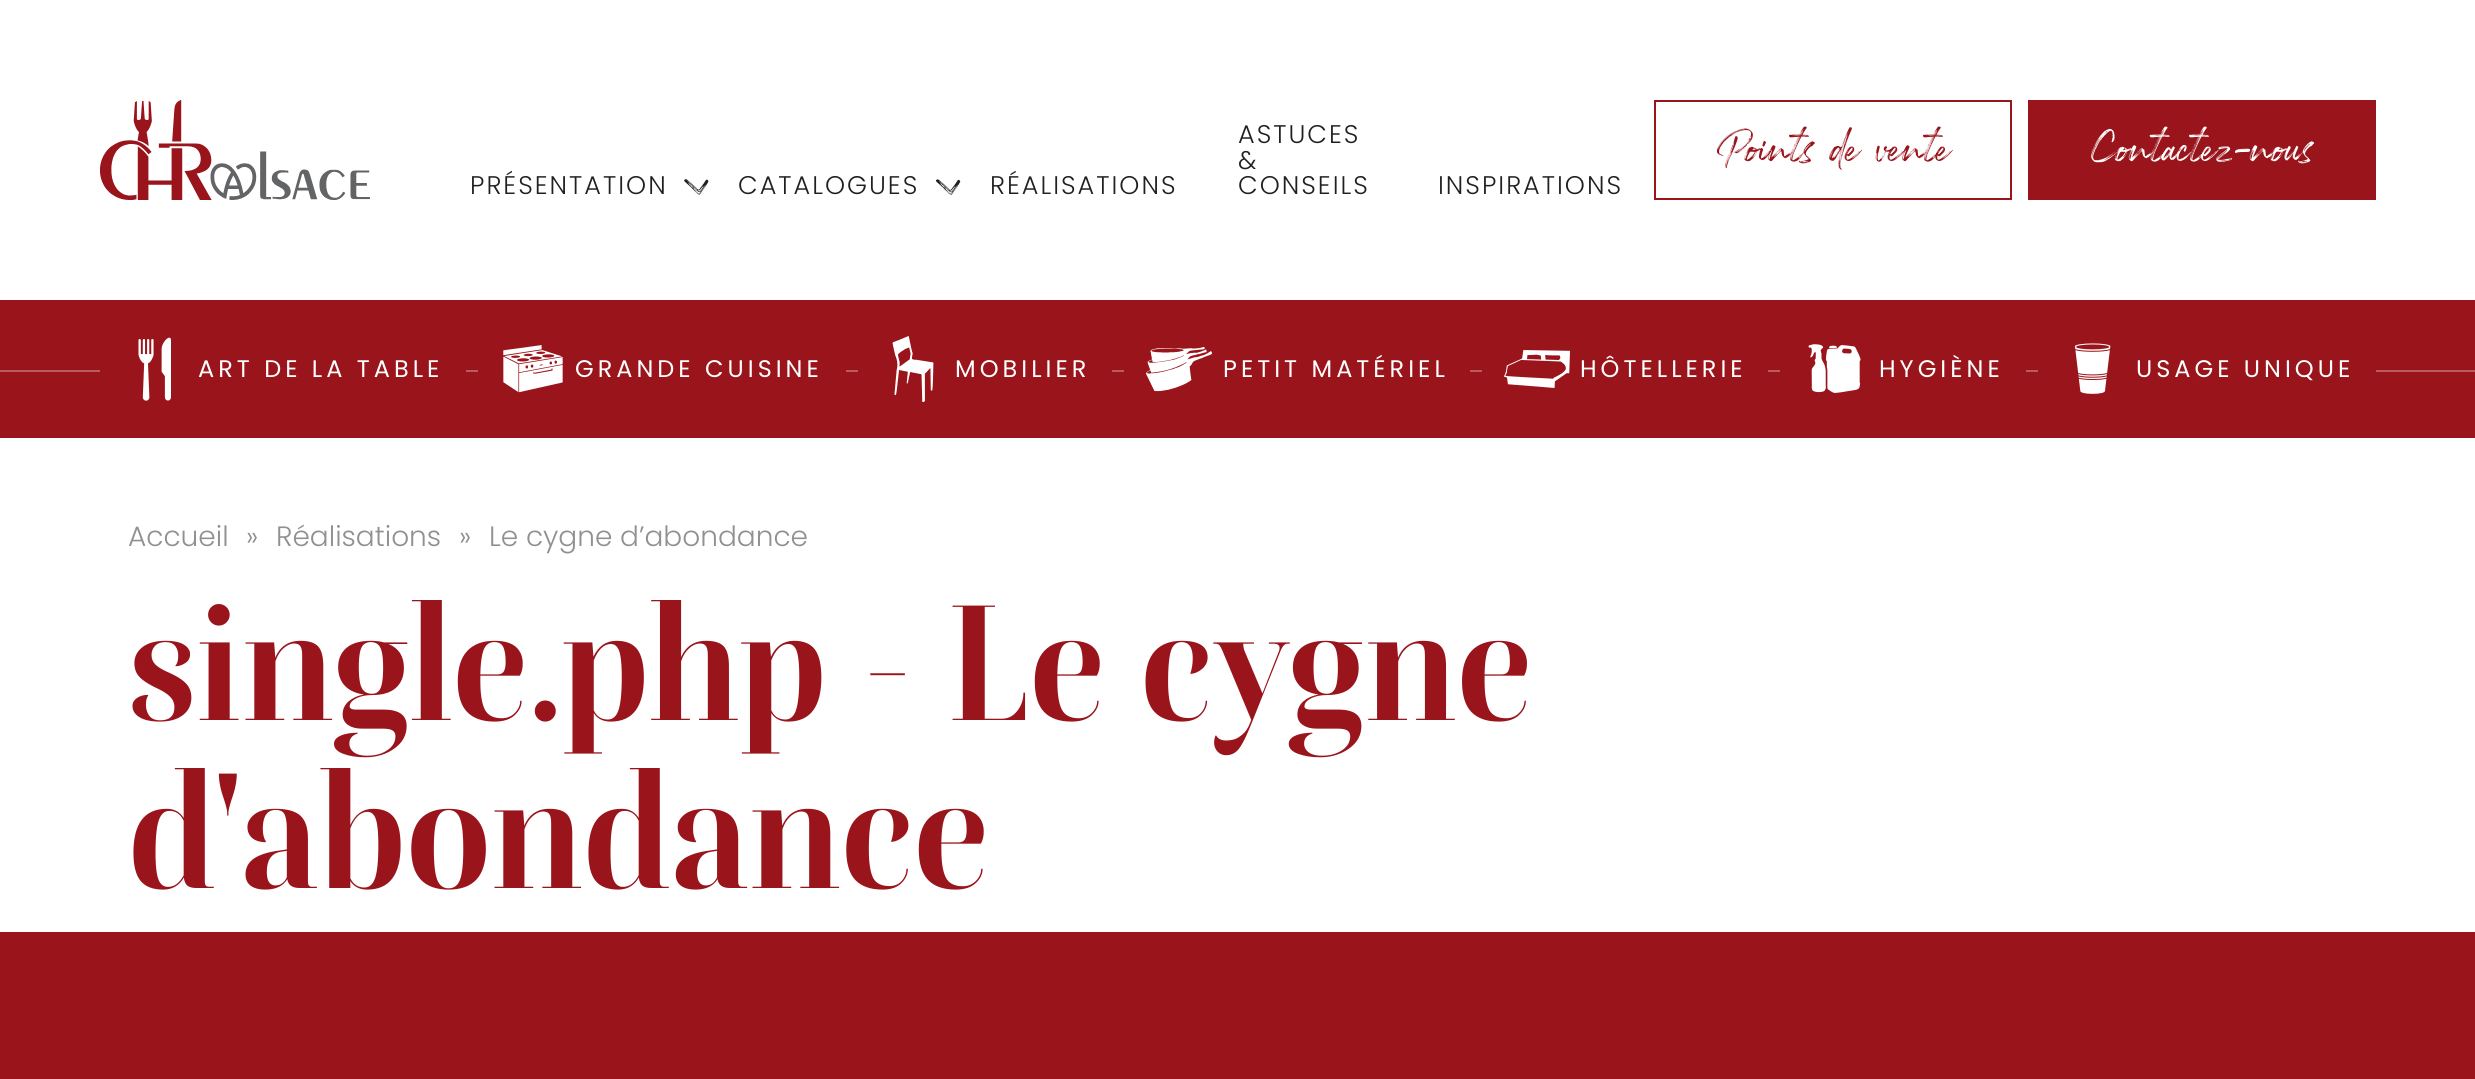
import math
import cairocffi as cairo

surface = cairo.ImageSurface(cairo.FORMAT_RGB24, 2475, 1079)
ctx = cairo.Context(surface)
options = cairo.FontOptions()
options.set_hint_metrics(cairo.HINT_METRICS_OFF)
options.set_hint_style(cairo.HINT_STYLE_NONE)
ctx.set_font_options(options)
ctx.set_miter_limit(4)


def rgb(r, g, b):
    ctx.set_source_rgb(r / 255, g / 255, b / 255)


def face(family, size, italic, bold):
    ctx.select_font_face(family, cairo.FONT_SLANT_ITALIC if italic else cairo.FONT_SLANT_NORMAL, cairo.FONT_WEIGHT_BOLD if bold else cairo.FONT_WEIGHT_NORMAL)
    ctx.set_font_size(size)


def label(x, y, s):
    ctx.move_to(x, y)
    ctx.show_text(s)


def tracked(x, y, s, letter, word):
    ctx.move_to(x, y)
    for ch in s:
        ctx.show_text(ch)
        ctx.rel_move_to(letter + word * (ch == ' '), 0)


def rect(x, y, w, h):
    ctx.rectangle(x, y, w, h)
    ctx.fill()


def image(path, x, y, w, h):
    ctx.save()
    ctx.set_source_surface(cairo.ImageSurface.create_from_png(path), x, y)
    ctx.rectangle(x, y, w, h)
    ctx.fill()
    ctx.restore()


rgb(255, 255, 255)
ctx.paint()
image('image0.png', 100, 100, 270, 100)
face('Poppins Light', 25.5, 0, 0)
rgb(32, 32, 32)
tracked(470, 194, 'PRÉSENTATION', 2, 0)
image('image1.png', 684, 179, 25, 16)
tracked(738, 194, 'CATALOGUES', 2, 0)
image('image2.png', 936, 179, 25, 16)
tracked(990, 194, 'RÉALISATIONS', 2, 0)
tracked(1238, 143, 'ASTUCES', 2, 0)
tracked(1238, 169, '&', 2, 0)
tracked(1238, 194, 'CONSEILS', 2, 0)
tracked(1438, 194, 'INSPIRATIONS', 2, 0)
ctx.rectangle(1655, 101, 356, 98)
rgb(154, 20, 27)
ctx.stroke()
face('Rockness', 48, 0, 0)
label(1716, 160, 'Points de vente')
rect(2028, 100, 348, 100)
rgb(255, 255, 255)
label(2090, 160, 'Contactez-nous')
rgb(154, 20, 27)
rect(0, 300, 2475, 138)
rgb(184, 91, 95)
rect(0, 370, 2475, 2)
rgb(154, 20, 27)
rect(100, 370, 366, 2)
image('image3.png', 138, 337, 33, 64)
face('Poppins', 24, 0, 0)
rgb(255, 255, 255)
tracked(198, 377, 'ART DE LA TABLE', 4, 0)
rgb(154, 20, 27)
rect(478, 370, 368, 2)
image('image4.png', 503, 345, 60, 48)
rgb(255, 255, 255)
tracked(575, 377, 'GRANDE CUISINE', 4, 0)
rgb(154, 20, 27)
rect(858, 370, 254, 2)
image('image5.png', 892, 336, 42, 66)
rgb(255, 255, 255)
tracked(955, 377, 'MOBILIER', 4, 0)
rgb(154, 20, 27)
rect(1124, 370, 346, 2)
image('image6.png', 1146, 347, 66, 45)
rgb(255, 255, 255)
tracked(1223, 377, 'PETIT MATÉRIEL', 4, 0)
rgb(154, 20, 27)
rect(1482, 370, 286, 2)
image('image7.png', 1504, 350, 66, 38)
rgb(255, 255, 255)
tracked(1580, 377, 'HÔTELLERIE', 4, 0)
rgb(154, 20, 27)
rect(1780, 370, 246, 2)
image('image8.png', 1808, 344, 53, 49)
rgb(255, 255, 255)
tracked(1879, 377, 'HYGIÈNE', 4, 0)
rgb(154, 20, 27)
rect(2038, 370, 338, 2)
image('image9.png', 2074, 343, 37, 51)
rgb(255, 255, 255)
tracked(2136, 377, 'USAGE UNIQUE', 4, 0)
face('Poppins Light', 28, 0, 0)
rgb(144, 144, 144)
label(128, 546, 'Accueil')
label(246, 546, '»')
label(276, 546, 'Réalisations')
label(459, 546, '»')
label(489, 546, 'Le cygne d’abondance')
face('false', 160, 0, 1)
rgb(154, 20, 27)
label(128, 720, 'single.php - Le cygne')
label(128, 888, 'd\'abondance')
rect(0, 932, 2475, 147)
surface.write_to_png('render.png')
